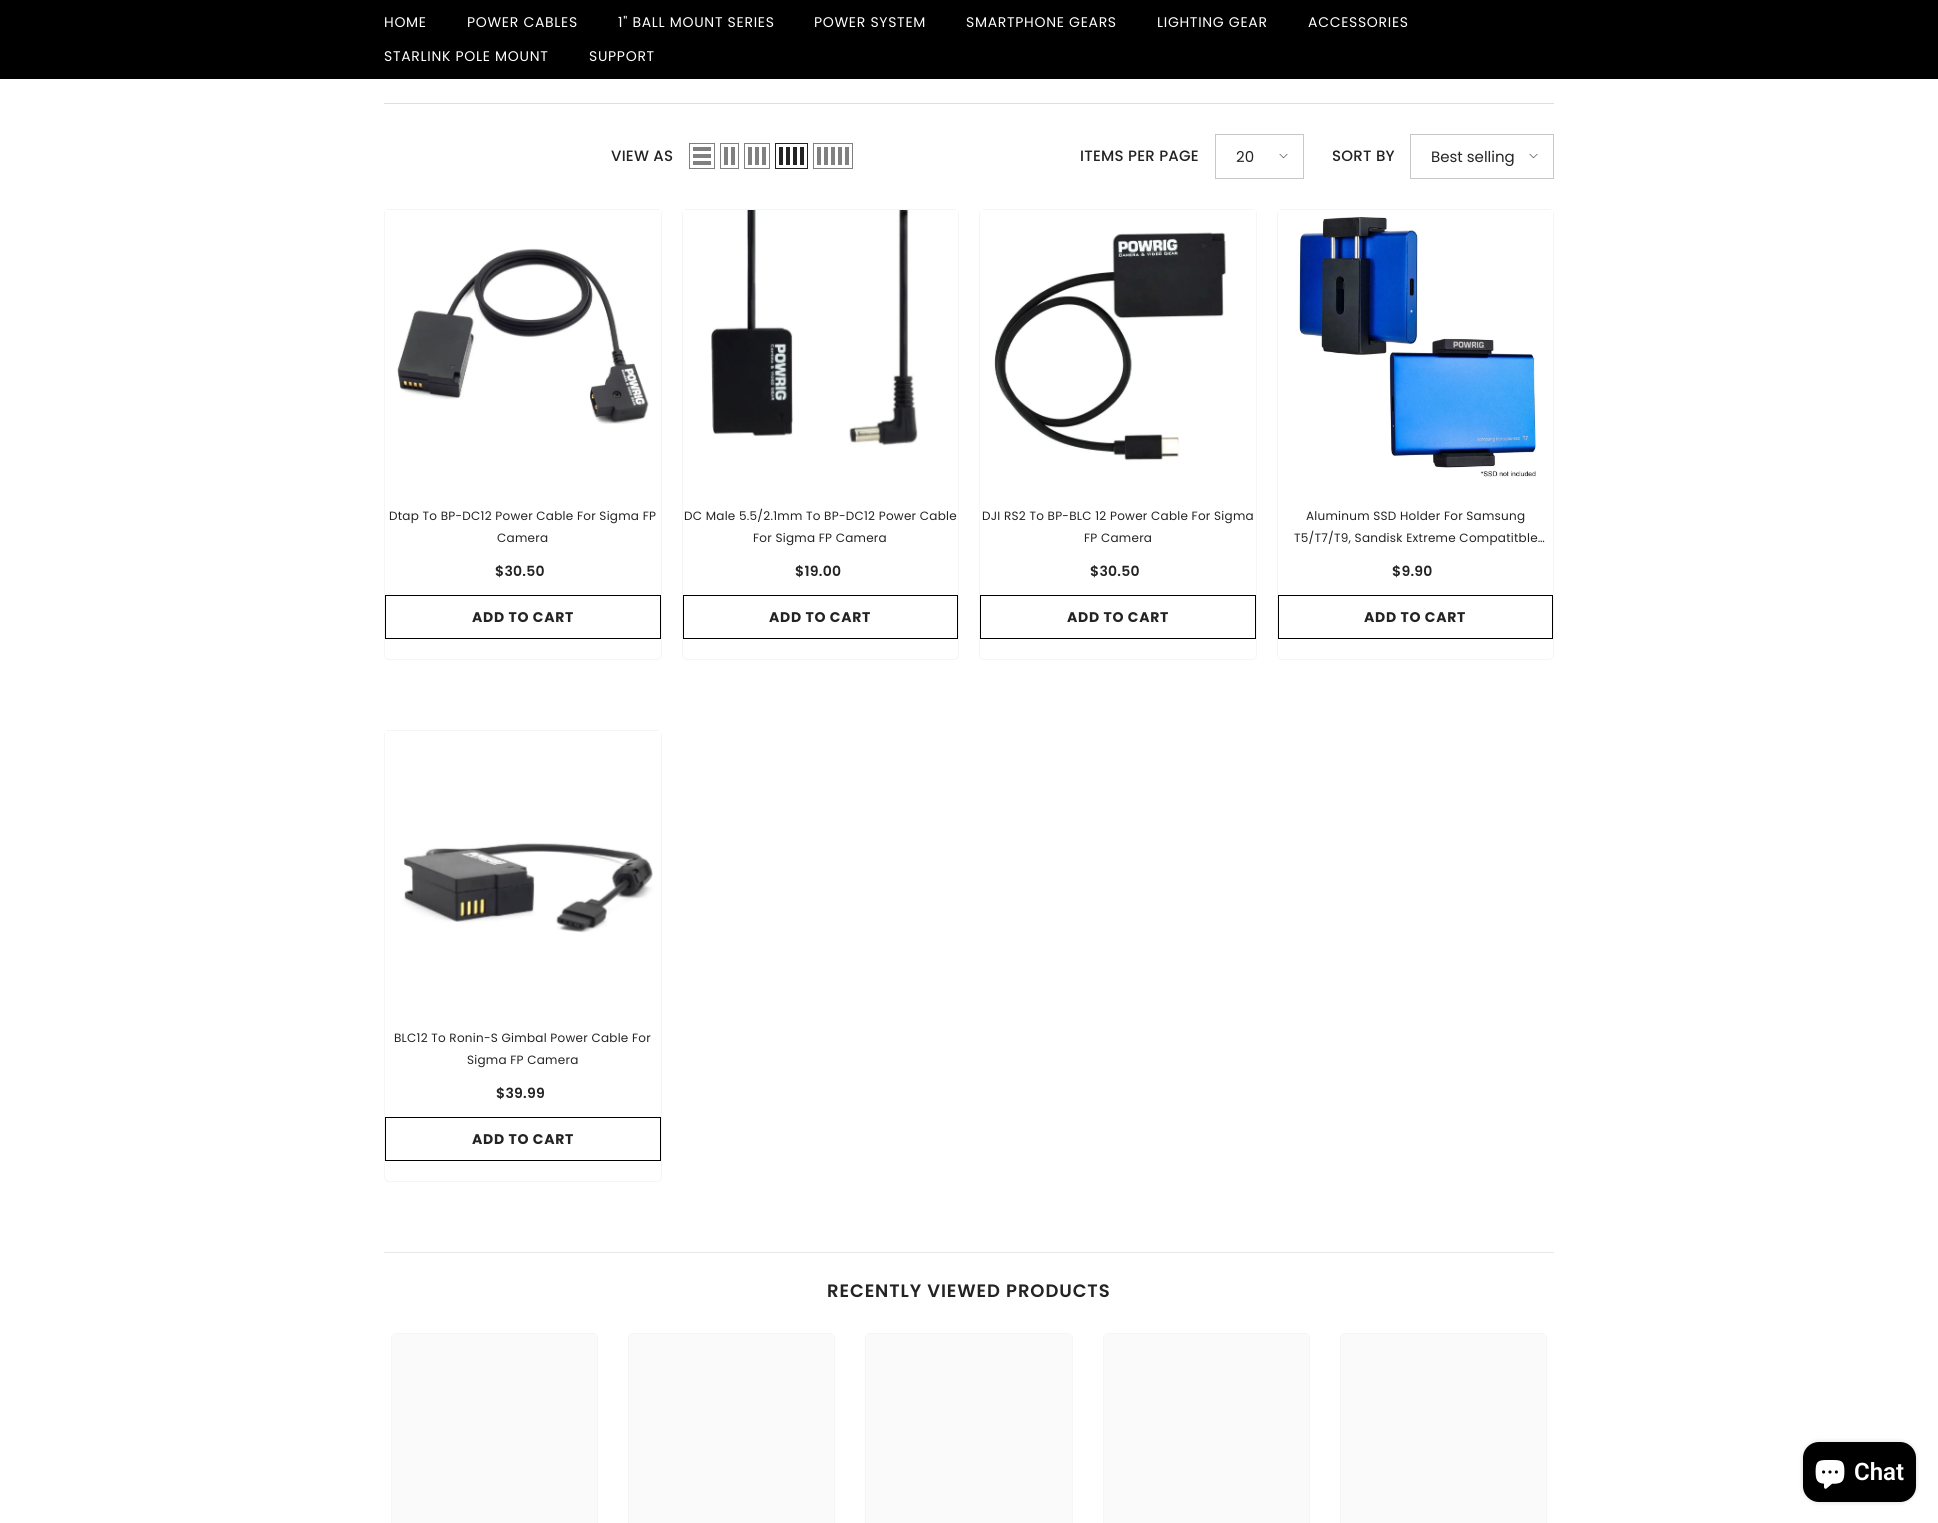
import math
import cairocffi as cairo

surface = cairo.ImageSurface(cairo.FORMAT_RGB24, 1938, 1523)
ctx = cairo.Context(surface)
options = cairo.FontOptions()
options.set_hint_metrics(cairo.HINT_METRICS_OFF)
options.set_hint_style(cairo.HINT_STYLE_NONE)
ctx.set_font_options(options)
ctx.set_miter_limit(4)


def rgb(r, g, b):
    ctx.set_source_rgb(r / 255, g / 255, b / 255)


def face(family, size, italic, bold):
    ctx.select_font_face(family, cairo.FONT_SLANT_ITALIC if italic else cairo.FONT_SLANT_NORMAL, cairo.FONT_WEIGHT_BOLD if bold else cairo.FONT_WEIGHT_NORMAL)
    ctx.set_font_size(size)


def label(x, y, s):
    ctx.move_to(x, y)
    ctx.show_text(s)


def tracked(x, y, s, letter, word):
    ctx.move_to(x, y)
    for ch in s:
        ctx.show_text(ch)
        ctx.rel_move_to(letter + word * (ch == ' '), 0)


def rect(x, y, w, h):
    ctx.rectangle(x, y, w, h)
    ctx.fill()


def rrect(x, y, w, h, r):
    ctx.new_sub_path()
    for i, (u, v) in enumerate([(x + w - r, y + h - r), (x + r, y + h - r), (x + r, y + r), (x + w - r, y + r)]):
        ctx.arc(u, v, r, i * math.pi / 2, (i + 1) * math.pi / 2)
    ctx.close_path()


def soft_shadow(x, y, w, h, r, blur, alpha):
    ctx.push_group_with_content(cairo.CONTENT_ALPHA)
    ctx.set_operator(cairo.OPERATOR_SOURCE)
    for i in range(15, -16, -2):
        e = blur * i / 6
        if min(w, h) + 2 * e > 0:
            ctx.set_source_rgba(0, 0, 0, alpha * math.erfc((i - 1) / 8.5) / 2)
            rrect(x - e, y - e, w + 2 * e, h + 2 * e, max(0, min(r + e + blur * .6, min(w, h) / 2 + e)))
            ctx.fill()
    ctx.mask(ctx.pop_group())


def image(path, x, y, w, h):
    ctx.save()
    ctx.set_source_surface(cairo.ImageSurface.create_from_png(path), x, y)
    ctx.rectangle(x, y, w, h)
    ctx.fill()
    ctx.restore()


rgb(255, 255, 255)
ctx.paint()
rgb(0, 0, 0)
rect(0, 0, 1938, 79)
face('Poppins', 14, 0, 0)
rgb(255, 255, 255)
tracked(384, 27, 'HOME', 0.7, 0)
tracked(467, 27, 'POWER CABLES', 0.7, 0)
tracked(618, 27, '1" BALL MOUNT SERIES', 0.7, 0)
tracked(814, 27, 'POWER SYSTEM', 0.7, 0)
tracked(966, 27, 'SMARTPHONE GEARS', 0.7, 0)
tracked(1157, 27, 'LIGHTING GEAR', 0.7, 0)
tracked(1308, 27, 'ACCESSORIES', 0.7, 0)
tracked(384, 61, 'STARLINK POLE MOUNT', 0.7, 0)
tracked(589, 61, 'SUPPORT', 0.7, 0)
rgb(222, 222, 222)
rect(384, 103, 1170, 1)
face('Poppins Medium', 15, 0, 0)
rgb(35, 35, 35)
tracked(611, 161, 'VIEW AS', 0.25, 0)
ctx.rectangle(689.5, 143.5, 25, 25)
rgb(128, 128, 128)
ctx.set_line_width(1)
ctx.stroke()
rect(693, 161, 18, 4)
rect(693, 154, 18, 4)
rect(693, 147, 18, 4)
ctx.rectangle(720.5, 143.5, 18, 25)
ctx.stroke()
rect(731, 147, 4, 18)
rect(724, 147, 4, 18)
ctx.rectangle(744.5, 143.5, 25, 25)
ctx.stroke()
rect(762, 147, 4, 18)
rect(755, 147, 4, 18)
rect(748, 147, 4, 18)
ctx.rectangle(775.5, 143.5, 32, 25)
rgb(35, 35, 35)
ctx.stroke()
rect(800, 147, 4, 18)
rect(793, 147, 4, 18)
rect(786, 147, 4, 18)
rect(779, 147, 4, 18)
ctx.rectangle(813.5, 143.5, 39, 25)
rgb(128, 128, 128)
ctx.stroke()
rect(845, 147, 4, 18)
rect(838, 147, 4, 18)
rect(831, 147, 4, 18)
rect(824, 147, 4, 18)
rect(817, 147, 4, 18)
rgb(35, 35, 35)
tracked(1080, 161, 'ITEMS PER PAGE', 0.25, 0)
ctx.rectangle(1215.5, 134.5, 88, 44)
rgb(199, 199, 199)
ctx.stroke()
face('Poppins', 15, 0, 0)
rgb(35, 35, 35)
label(1236, 162, '20')
image('image0.png', 1279, 154, 9, 5)
face('Poppins Medium', 15, 0, 0)
tracked(1332, 161, 'SORT BY', 0.25, 0)
ctx.rectangle(1410.5, 134.5, 143, 44)
rgb(199, 199, 199)
ctx.stroke()
face('Poppins', 15, 0, 0)
rgb(35, 35, 35)
label(1431, 162, 'Best selling')
image('image0.png', 1529, 154, 9, 5)
rrect(384.5, 209.5, 277, 450, 4.5)
rgb(245, 245, 245)
ctx.stroke()
image('image1.png', 385, 210, 276, 214)
face('Poppins', 12, 0, 0)
rgb(35, 35, 35)
tracked(389, 520, 'Dtap To BP-DC12 Power Cable For Sigma FP', 0.25, 0)
tracked(497, 542, 'Camera', 0.25, 0)
face('Poppins SemiBold', 14, 0, 0)
tracked(495, 576, '$30.50', 0.25, 0)
ctx.rectangle(385.5, 595.5, 275, 43)
rgb(0, 0, 0)
ctx.stroke()
face('Poppins', 14, 0, 1)
rgb(35, 35, 35)
tracked(472, 622, 'ADD TO CART', 0.7, 0)
rrect(682.5, 209.5, 276, 450, 4.5)
rgb(245, 245, 245)
ctx.stroke()
image('image2.png', 683, 210, 275, 236)
face('Poppins', 12, 0, 0)
rgb(35, 35, 35)
tracked(684, 520, 'DC Male 5.5/2.1mm To BP-DC12 Power Cable', 0.25, 0)
tracked(753, 542, 'For Sigma FP Camera', 0.25, 0)
face('Poppins SemiBold', 14, 0, 0)
tracked(795, 576, '$19.00', 0.25, 0)
ctx.rectangle(683.5, 595.5, 274, 43)
rgb(0, 0, 0)
ctx.stroke()
face('Poppins', 14, 0, 1)
rgb(35, 35, 35)
tracked(769, 622, 'ADD TO CART', 0.7, 0)
rrect(979.5, 209.5, 277, 450, 4.5)
rgb(245, 245, 245)
ctx.stroke()
image('image3.png', 980, 210, 276, 251)
face('Poppins', 12, 0, 0)
rgb(35, 35, 35)
tracked(982, 520, 'DJI RS2 To BP-BLC 12 Power Cable For Sigma', 0.25, 0)
tracked(1084, 542, 'FP Camera', 0.25, 0)
face('Poppins SemiBold', 14, 0, 0)
tracked(1090, 576, '$30.50', 0.25, 0)
ctx.rectangle(980.5, 595.5, 275, 43)
rgb(0, 0, 0)
ctx.stroke()
face('Poppins', 14, 0, 1)
rgb(35, 35, 35)
tracked(1067, 622, 'ADD TO CART', 0.7, 0)
rrect(1277.5, 209.5, 276, 450, 4.5)
rgb(245, 245, 245)
ctx.stroke()
image('image4.png', 1278, 210, 275, 267)
face('Poppins', 12, 0, 0)
rgb(35, 35, 35)
tracked(1306, 520, 'Aluminum SSD Holder For Samsung', 0.25, 0)
tracked(1294, 542, 'T5/T7/T9, Sandisk Extreme Compatitble…', 0.25, 0)
face('Poppins SemiBold', 14, 0, 0)
tracked(1392, 576, '$9.90', 0.25, 0)
ctx.rectangle(1278.5, 595.5, 274, 43)
rgb(0, 0, 0)
ctx.stroke()
face('Poppins', 14, 0, 1)
rgb(35, 35, 35)
tracked(1364, 622, 'ADD TO CART', 0.7, 0)
rrect(384.5, 730.5, 277, 451, 4.5)
rgb(245, 245, 245)
ctx.stroke()
image('image5.png', 385, 731, 276, 202)
face('Poppins', 12, 0, 0)
rgb(35, 35, 35)
tracked(394, 1042, 'BLC12 To Ronin-S Gimbal Power Cable For', 0.25, 0)
tracked(467, 1064, 'Sigma FP Camera', 0.25, 0)
face('Poppins SemiBold', 14, 0, 0)
tracked(496, 1098, '$39.99', 0.25, 0)
ctx.rectangle(385.5, 1117.5, 275, 43)
rgb(0, 0, 0)
ctx.stroke()
face('Poppins', 14, 0, 1)
rgb(35, 35, 35)
tracked(472, 1144, 'ADD TO CART', 0.7, 0)
rgb(232, 232, 232)
rect(384, 1252, 1170, 1)
face('Poppins SemiBold', 18, 0, 0)
rgb(35, 35, 35)
tracked(827, 1297, 'RECENTLY VIEWED PRODUCTS', 0.9, 0)
rrect(391.5, 1333.5, 206, 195, 4.5)
rgb(245, 245, 245)
ctx.stroke()
rgb(250, 250, 250)
rect(392, 1334, 205, 189)
rrect(628.5, 1333.5, 206, 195, 4.5)
rgb(245, 245, 245)
ctx.stroke()
rgb(250, 250, 250)
rect(629, 1334, 205, 189)
rrect(865.5, 1333.5, 207, 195, 4.5)
rgb(245, 245, 245)
ctx.stroke()
rgb(250, 250, 250)
rect(866, 1334, 206, 189)
rrect(1103.5, 1333.5, 206, 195, 4.5)
rgb(245, 245, 245)
ctx.stroke()
rgb(250, 250, 250)
rect(1104, 1334, 205, 189)
rrect(1340.5, 1333.5, 206, 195, 4.5)
rgb(245, 245, 245)
ctx.stroke()
rgb(250, 250, 250)
rect(1341, 1334, 205, 189)
rgb(0, 0, 0)
soft_shadow(1803, 1442, 113, 60, 16, 2.5, 0.15)
rgb(0, 0, 0)
rrect(1803, 1442, 113, 60, 16)
ctx.fill()
image('image6.png', 1815, 1460, 30, 29)
face('Roboto SemiBold', 24, 0, 0)
rgb(255, 255, 255)
label(1854, 1480, 'Chat')
surface.write_to_png('render.png')
